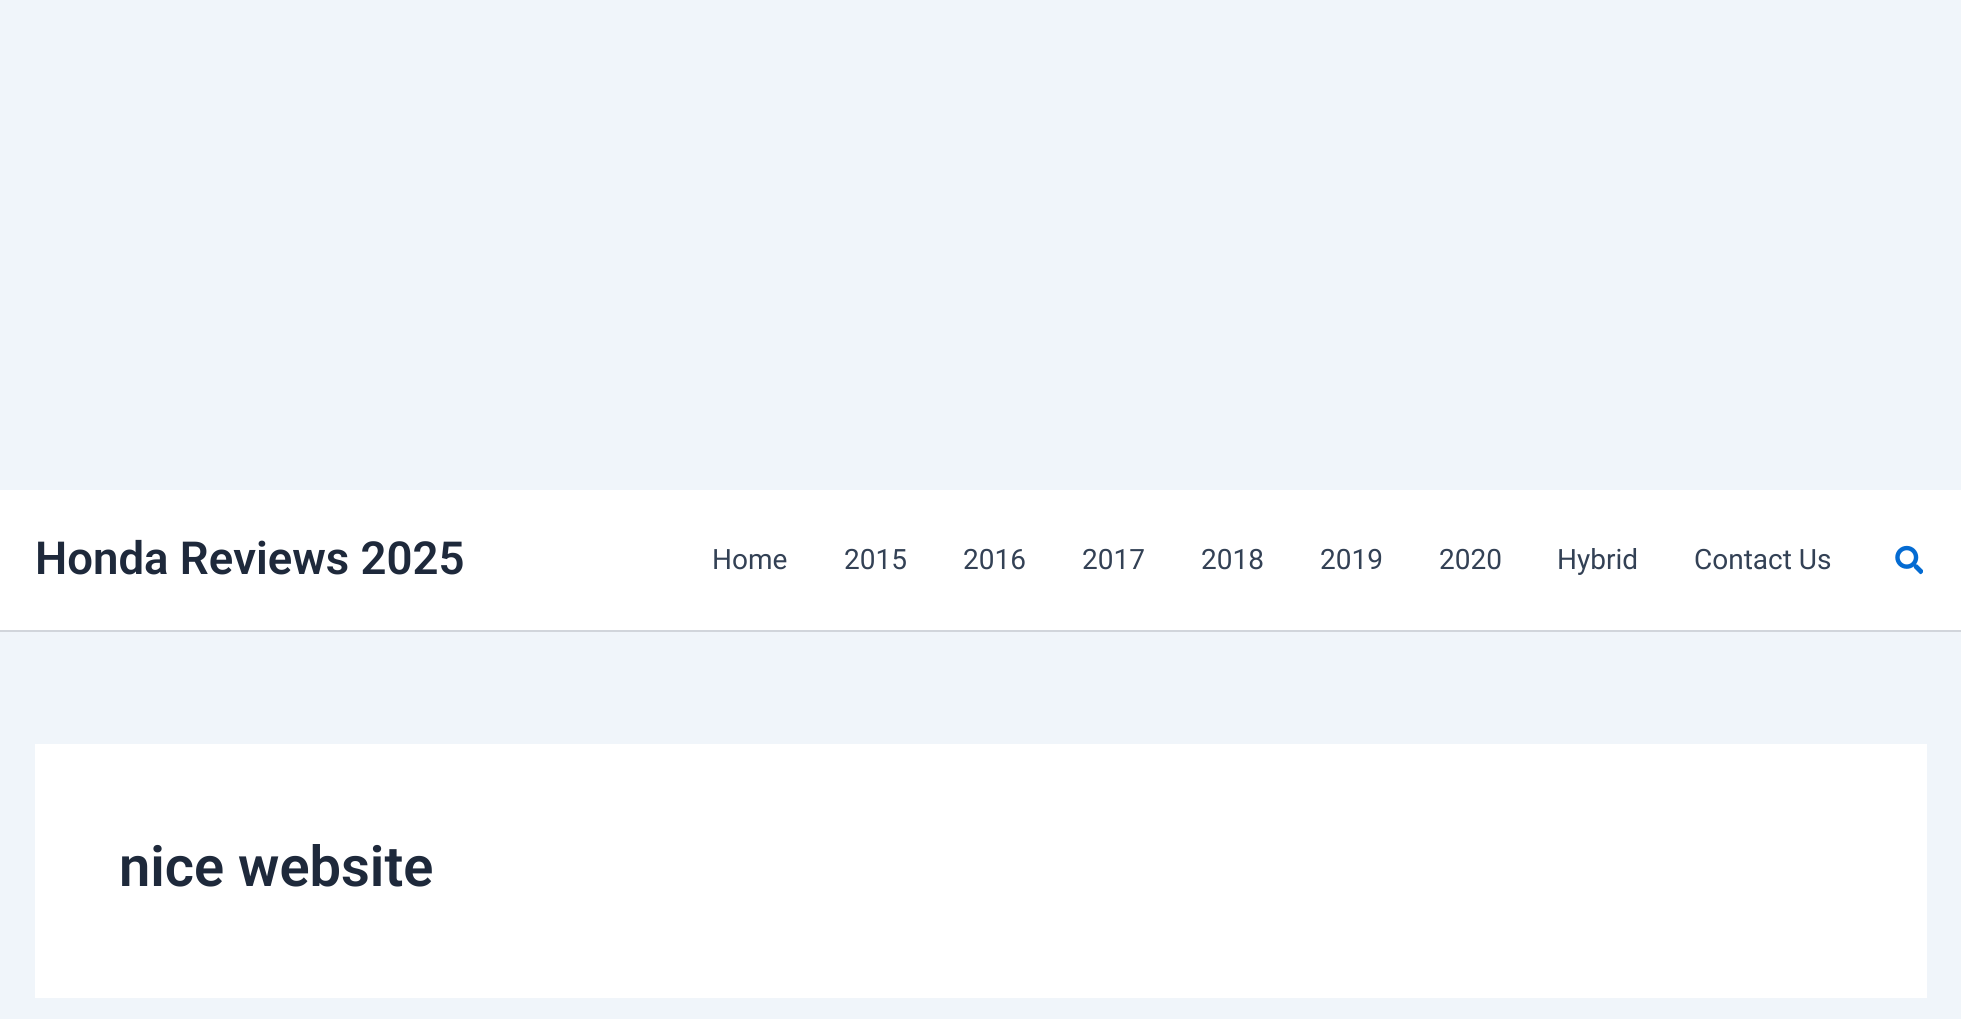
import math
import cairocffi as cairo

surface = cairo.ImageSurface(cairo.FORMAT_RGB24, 1961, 1019)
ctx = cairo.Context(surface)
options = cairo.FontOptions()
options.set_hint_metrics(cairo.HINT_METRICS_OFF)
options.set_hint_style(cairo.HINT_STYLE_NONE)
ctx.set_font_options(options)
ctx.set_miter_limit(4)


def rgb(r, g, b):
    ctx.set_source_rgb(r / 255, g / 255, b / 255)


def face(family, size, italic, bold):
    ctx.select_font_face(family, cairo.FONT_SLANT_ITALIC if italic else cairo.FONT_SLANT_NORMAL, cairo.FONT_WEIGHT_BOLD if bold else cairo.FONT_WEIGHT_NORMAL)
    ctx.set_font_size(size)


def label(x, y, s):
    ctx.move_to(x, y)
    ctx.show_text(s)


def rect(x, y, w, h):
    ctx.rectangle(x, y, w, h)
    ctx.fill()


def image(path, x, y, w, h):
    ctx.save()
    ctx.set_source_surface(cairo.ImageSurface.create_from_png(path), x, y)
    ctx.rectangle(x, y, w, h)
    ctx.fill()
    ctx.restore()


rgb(240, 245, 250)
ctx.paint()
rgb(255, 255, 255)
rect(0, 490, 1961, 140)
rgb(209, 213, 219)
rect(0, 630, 1961, 2)
face('Roboto SemiBold', 45.5, 0, 0)
rgb(30, 41, 59)
label(35, 574, 'Honda Reviews 2025')
face('Roboto', 28, 0, 0)
rgb(51, 65, 85)
label(712, 569, 'Home')
label(844, 569, '2015')
label(963, 569, '2016')
label(1082, 569, '2017')
label(1201, 569, '2018')
label(1320, 569, '2019')
label(1439, 569, '2020')
label(1557, 569, 'Hybrid')
label(1694, 569, 'Contact Us')
image('image0.png', 1895, 545, 28, 30)
rgb(255, 255, 255)
rect(35, 744, 1892, 254)
face('Roboto SemiBold', 56, 0, 0)
rgb(30, 41, 59)
label(119, 886, 'nice website')
surface.write_to_png('render.png')
